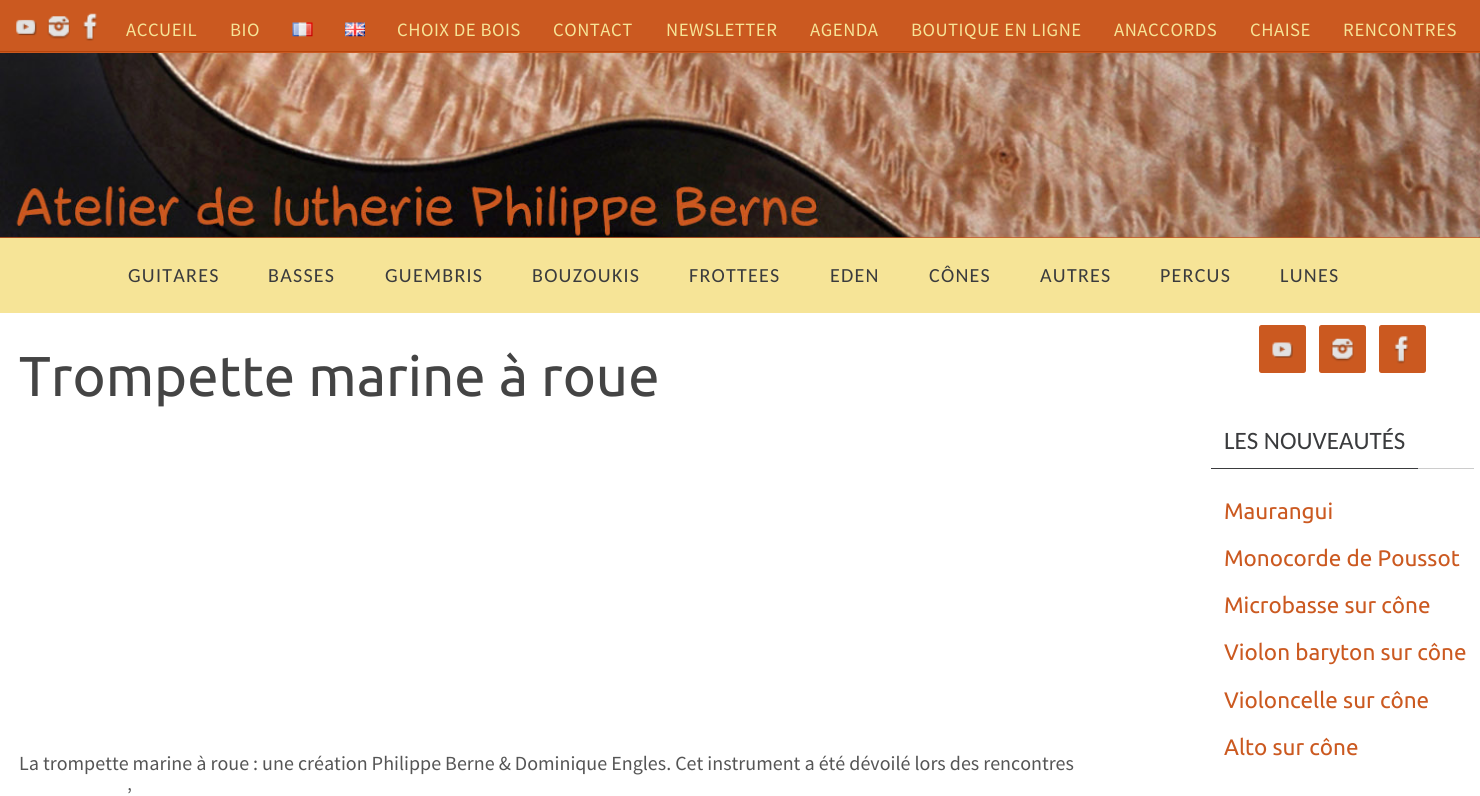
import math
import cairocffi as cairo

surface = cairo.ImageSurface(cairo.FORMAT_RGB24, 1480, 796)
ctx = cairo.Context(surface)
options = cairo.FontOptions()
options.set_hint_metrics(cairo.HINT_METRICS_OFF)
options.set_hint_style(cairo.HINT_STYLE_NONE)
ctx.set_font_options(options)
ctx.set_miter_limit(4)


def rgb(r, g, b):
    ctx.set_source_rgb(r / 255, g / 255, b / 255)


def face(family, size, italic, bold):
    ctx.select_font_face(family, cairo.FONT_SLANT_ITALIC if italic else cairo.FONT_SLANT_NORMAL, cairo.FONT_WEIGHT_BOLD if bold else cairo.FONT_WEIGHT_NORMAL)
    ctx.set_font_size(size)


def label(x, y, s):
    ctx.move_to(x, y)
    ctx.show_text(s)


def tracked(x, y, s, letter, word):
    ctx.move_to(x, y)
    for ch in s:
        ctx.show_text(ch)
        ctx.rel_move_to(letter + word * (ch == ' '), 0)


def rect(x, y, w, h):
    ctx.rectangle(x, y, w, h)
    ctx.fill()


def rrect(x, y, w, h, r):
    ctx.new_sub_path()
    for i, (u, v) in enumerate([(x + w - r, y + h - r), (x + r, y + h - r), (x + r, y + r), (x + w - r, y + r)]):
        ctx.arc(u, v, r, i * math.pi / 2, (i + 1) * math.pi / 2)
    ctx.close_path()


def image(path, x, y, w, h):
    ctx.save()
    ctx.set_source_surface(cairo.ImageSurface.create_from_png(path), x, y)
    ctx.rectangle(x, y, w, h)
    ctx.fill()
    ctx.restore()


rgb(255, 255, 255)
ctx.paint()
rgb(203, 89, 32)
rect(0, 0, 1480, 53)
rgb(183, 69, 12)
rect(0, 51, 1480, 1)
image('image0.png', 16, 19, 21, 17)
image('image1.png', 47, 16, 23, 23)
image('image2.png', 82, 13, 15, 28)
face('Source Sans Pro', 18.75, 0, 0)
rgb(246, 228, 151)
tracked(126, 36, 'ACCUEIL', 0.5, 0)
tracked(230, 36, 'BIO', 0.5, 0)
image('image3.png', 292, 22, 21, 15)
image('image4.png', 345, 22, 20, 15)
tracked(397, 36, 'CHOIX DE BOIS', 0.5, 0)
tracked(553, 36, 'CONTACT', 0.5, 0)
tracked(666, 36, 'NEWSLETTER', 0.5, 0)
tracked(810, 36, 'AGENDA', 0.5, 0)
tracked(911, 36, 'BOUTIQUE EN LIGNE', 0.5, 0)
tracked(1114, 36, 'ANACCORDS', 0.5, 0)
tracked(1250, 36, 'CHAISE', 0.5, 0)
tracked(1343, 36, 'RENCONTRES', 0.5, 0)
rgb(203, 89, 32)
rect(0, 237, 1480, 1)
image('image5.png', 0, 53, 1480, 185)
rgb(246, 228, 151)
rect(0, 238, 1480, 75)
face('Carlito', 20, 0, 0)
rgb(58, 59, 61)
tracked(128, 282, 'GUITARES', 1.25, 0)
tracked(268, 282, 'BASSES', 1.25, 0)
tracked(385, 282, 'GUEMBRIS', 1.25, 0)
tracked(532, 282, 'BOUZOUKIS', 1.25, 0)
tracked(689, 282, 'FROTTEES', 1.25, 0)
tracked(830, 282, 'EDEN', 1.25, 0)
tracked(929, 282, 'CÔNES', 1.25, 0)
tracked(1040, 282, 'AUTRES', 1.25, 0)
tracked(1160, 282, 'PERCUS', 1.25, 0)
tracked(1280, 282, 'LUNES', 1.25, 0)
face('Ubuntu', 56.25, 0, 0)
rgb(68, 68, 68)
label(19, 396, 'Trompette marine à roue')
face('Source Sans Pro', 20, 0, 0)
rgb(85, 85, 85)
label(19, 770, 'La trompette marine à roue : une création Philippe Berne & Dominique Engles. Cet instrument a été dévoilé lors des rencontres')
label(127, 802, '’')
rgb(203, 89, 32)
rrect(1259, 325, 47, 48, 2.5)
ctx.fill()
image('image6.png', 1272, 342, 21, 16)
rrect(1319, 325, 47, 48, 2.5)
ctx.fill()
image('image7.png', 1331, 338, 23, 24)
rrect(1379, 325, 47, 48, 2.5)
ctx.fill()
image('image8.png', 1394, 336, 15, 28)
rgb(204, 204, 204)
rect(1418, 468, 56, 1)
rgb(58, 59, 61)
rect(1211, 468, 207, 1)
face('Carlito', 25, 0, 0)
label(1224, 449, 'LES NOUVEAUTÉS')
face('Ubuntu', 22.5, 0, 0)
rgb(203, 89, 32)
label(1224, 519, 'Maurangui')
label(1224, 566, 'Monocorde de Poussot')
label(1224, 613, 'Microbasse sur cône')
label(1224, 660, 'Violon baryton sur cône')
label(1224, 708, 'Violoncelle sur cône')
label(1224, 755, 'Alto sur cône')
surface.write_to_png('render.png')
